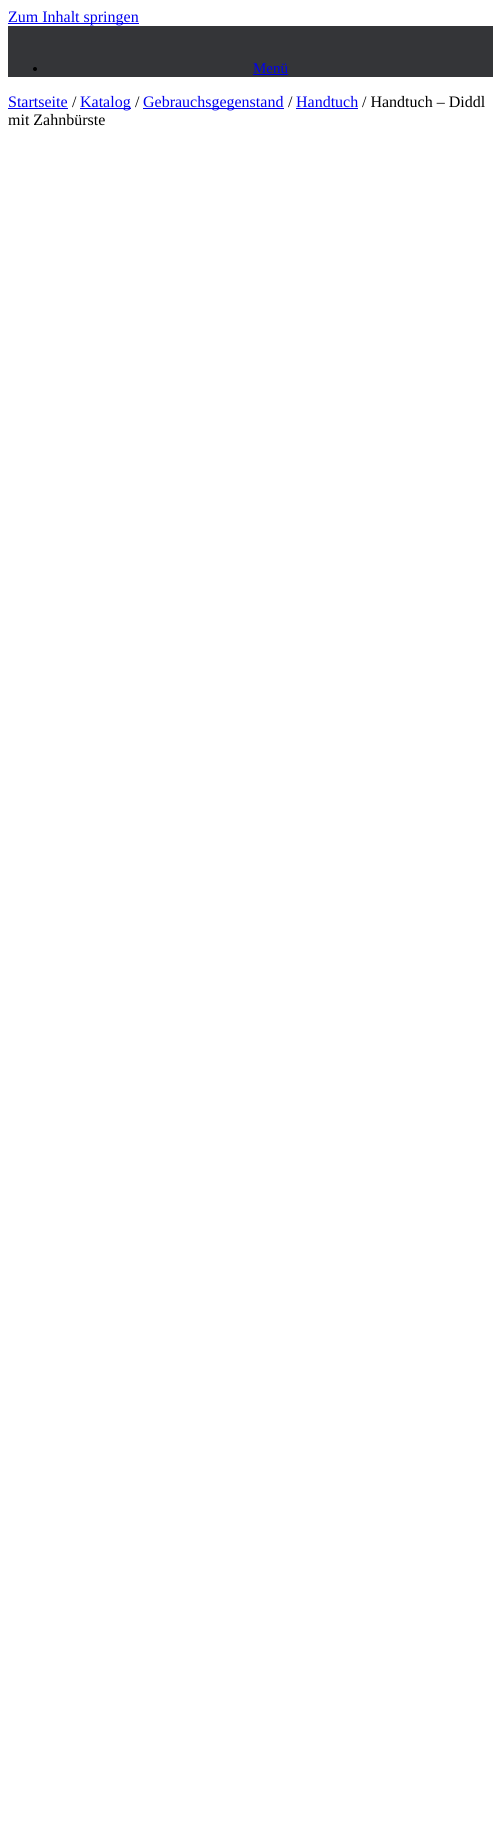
import math
import cairocffi as cairo

surface = cairo.ImageSurface(cairo.FORMAT_RGB24, 501, 1829)
ctx = cairo.Context(surface)
options = cairo.FontOptions()
options.set_hint_metrics(cairo.HINT_METRICS_OFF)
options.set_hint_style(cairo.HINT_STYLE_NONE)
ctx.set_font_options(options)
ctx.set_miter_limit(4)


def rgb(r, g, b):
    ctx.set_source_rgb(r / 255, g / 255, b / 255)


def face(family, size, italic, bold):
    ctx.select_font_face(family, cairo.FONT_SLANT_ITALIC if italic else cairo.FONT_SLANT_NORMAL, cairo.FONT_WEIGHT_BOLD if bold else cairo.FONT_WEIGHT_NORMAL)
    ctx.set_font_size(size)


def label(x, y, s):
    ctx.move_to(x, y)
    ctx.show_text(s)


def rect(x, y, w, h):
    ctx.rectangle(x, y, w, h)
    ctx.fill()


rgb(255, 255, 255)
ctx.paint()
rgb(0, 0, 238)
rect(8, 23, 131, 1)
face('Liberation Serif', 16, 0, 0)
label(8, 22, 'Zum Inhalt springen')
rgb(52, 53, 56)
rect(8, 26, 485, 51)
rgb(0, 0, 0)
ctx.new_path()
ctx.arc(35, 69, 2, 0, 2 * math.pi)
ctx.fill()
face('Liberation Serif', 15, 0, 0)
rgb(0, 0, 238)
label(253, 73, 'Menü')
rect(253, 74, 35, 1)
face('Liberation Serif', 16, 0, 0)
label(8, 107, 'Startseite')
rect(8, 108, 60, 1)
rgb(0, 0, 0)
label(72, 107, '/')
rgb(0, 0, 238)
rect(80, 108, 51, 1)
label(80, 107, 'Katalog')
rgb(0, 0, 0)
label(135, 107, '/')
rgb(0, 0, 238)
rect(143, 108, 141, 1)
label(143, 107, 'Gebrauchsgegenstand')
rgb(0, 0, 0)
label(288, 107, '/')
rgb(0, 0, 238)
label(296, 107, 'Handtuch')
rect(296, 108, 62, 1)
rgb(0, 0, 0)
label(362, 107, '/ Handtuch – Diddl')
label(8, 125, 'mit Zahnbürste')
surface.write_to_png('render.png')
